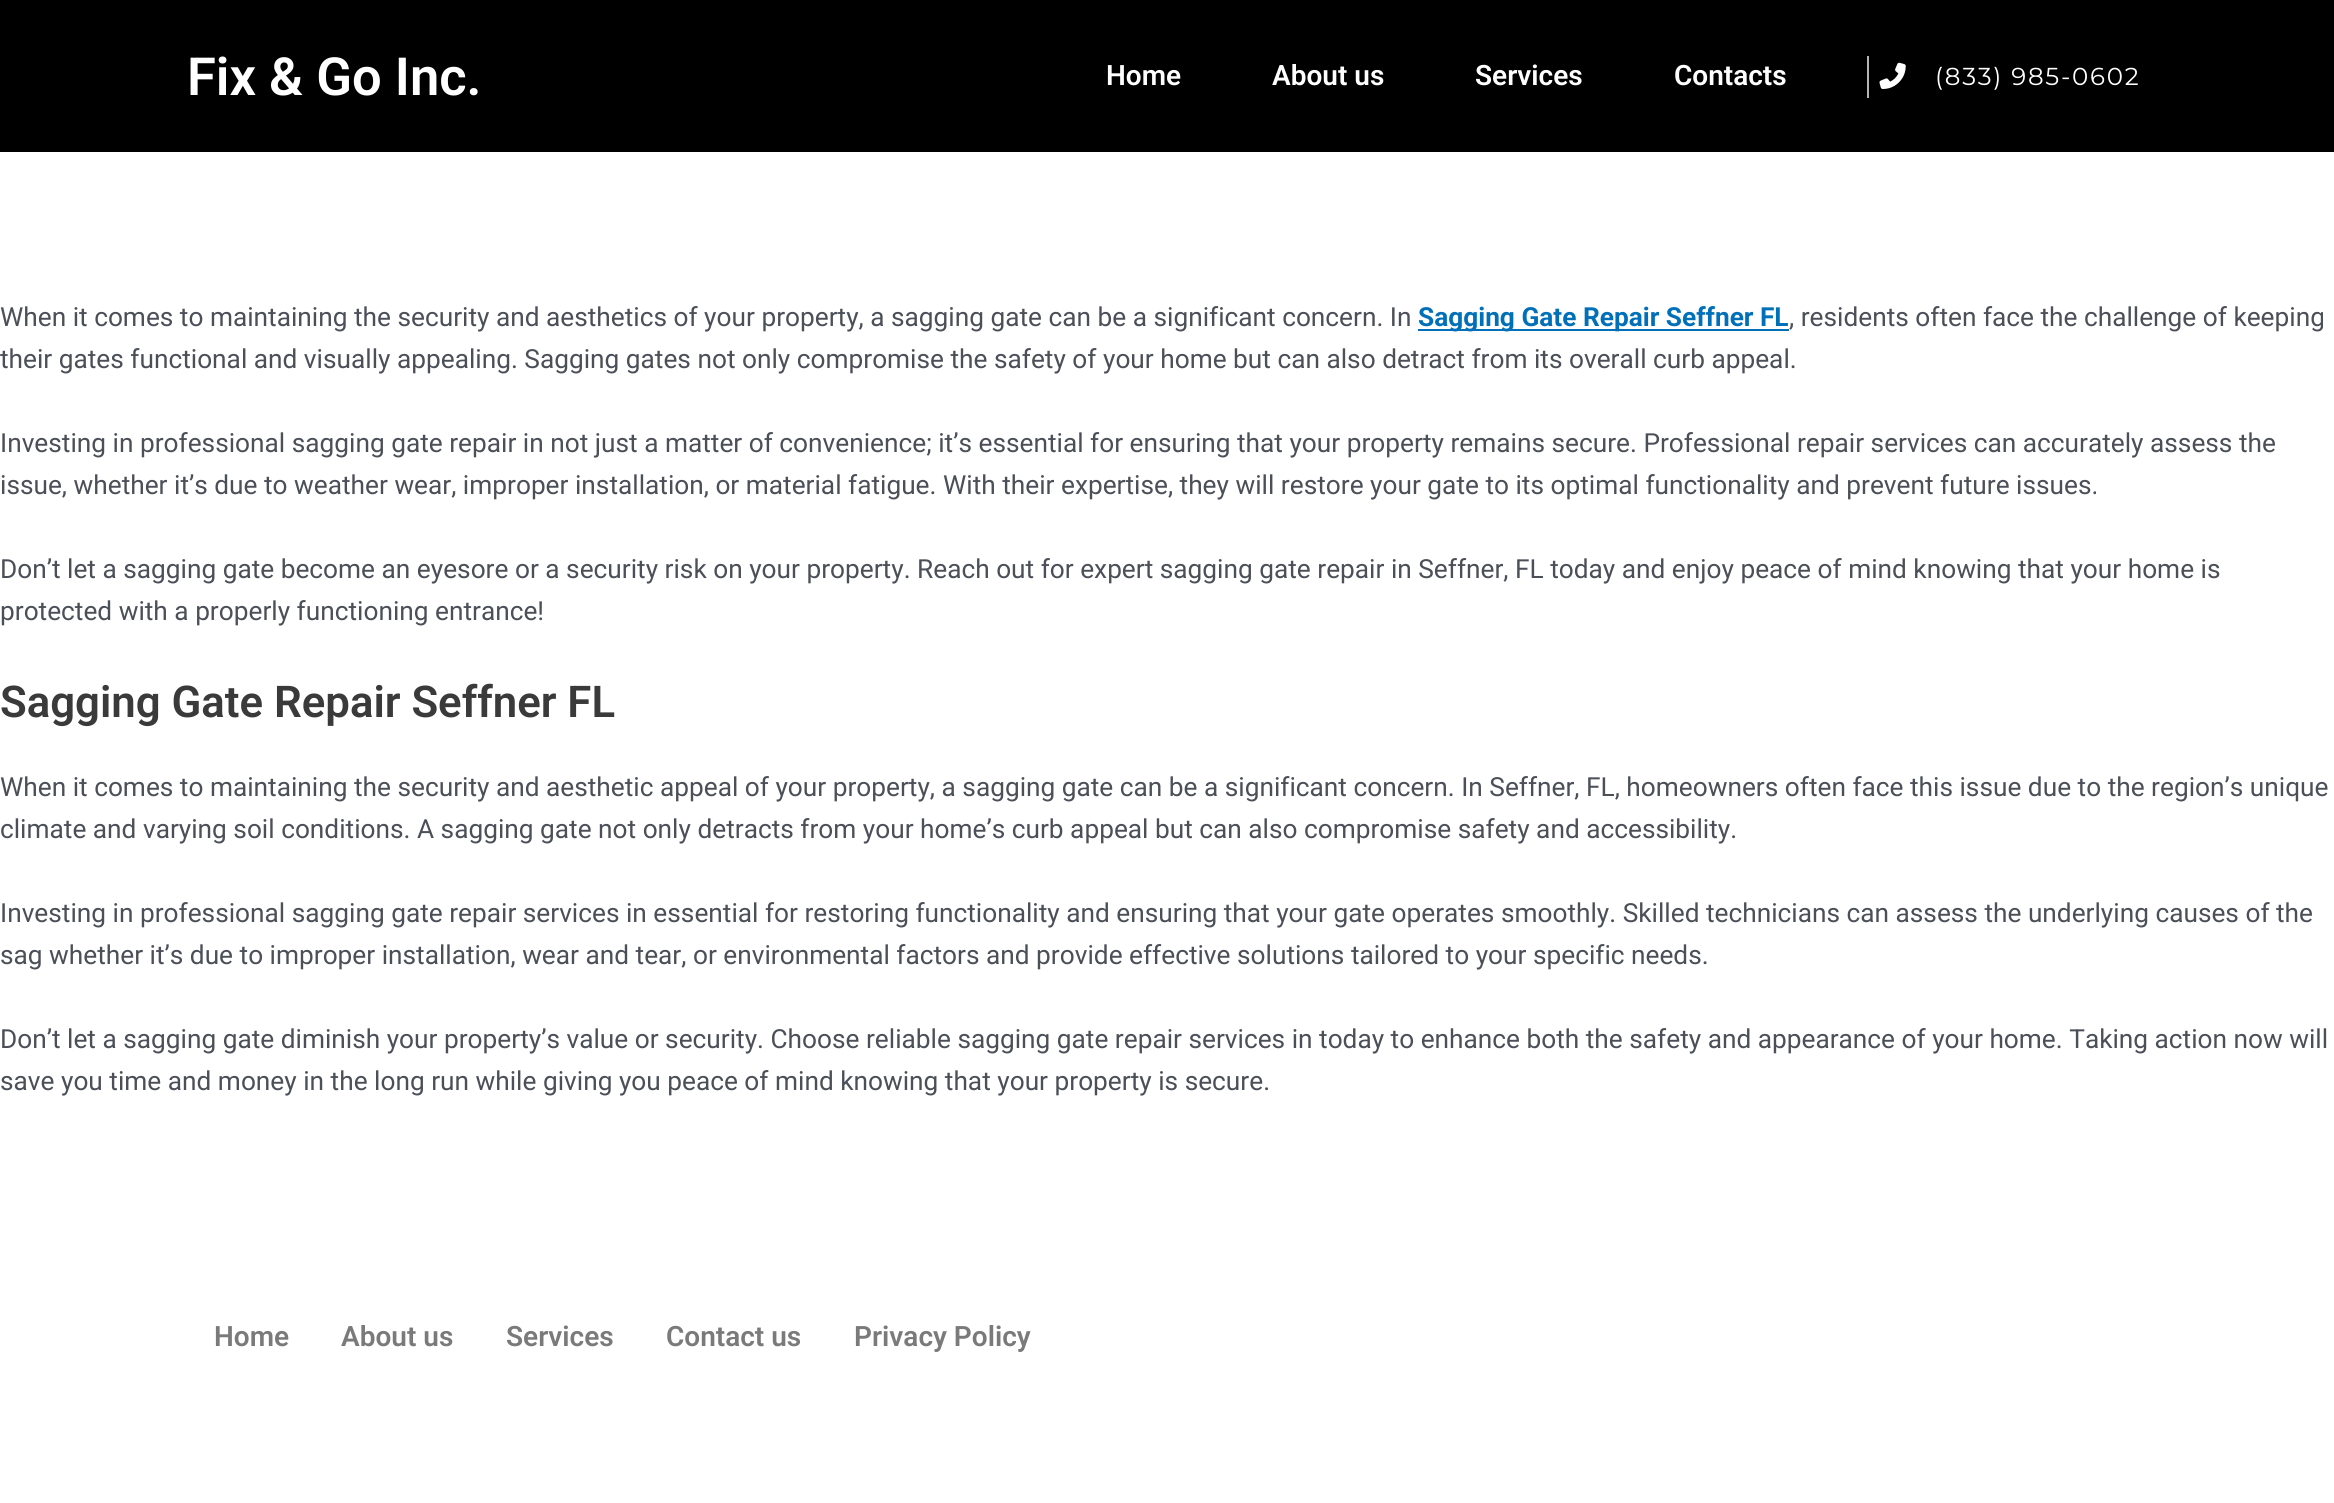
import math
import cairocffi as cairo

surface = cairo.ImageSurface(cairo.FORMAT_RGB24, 2334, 1503)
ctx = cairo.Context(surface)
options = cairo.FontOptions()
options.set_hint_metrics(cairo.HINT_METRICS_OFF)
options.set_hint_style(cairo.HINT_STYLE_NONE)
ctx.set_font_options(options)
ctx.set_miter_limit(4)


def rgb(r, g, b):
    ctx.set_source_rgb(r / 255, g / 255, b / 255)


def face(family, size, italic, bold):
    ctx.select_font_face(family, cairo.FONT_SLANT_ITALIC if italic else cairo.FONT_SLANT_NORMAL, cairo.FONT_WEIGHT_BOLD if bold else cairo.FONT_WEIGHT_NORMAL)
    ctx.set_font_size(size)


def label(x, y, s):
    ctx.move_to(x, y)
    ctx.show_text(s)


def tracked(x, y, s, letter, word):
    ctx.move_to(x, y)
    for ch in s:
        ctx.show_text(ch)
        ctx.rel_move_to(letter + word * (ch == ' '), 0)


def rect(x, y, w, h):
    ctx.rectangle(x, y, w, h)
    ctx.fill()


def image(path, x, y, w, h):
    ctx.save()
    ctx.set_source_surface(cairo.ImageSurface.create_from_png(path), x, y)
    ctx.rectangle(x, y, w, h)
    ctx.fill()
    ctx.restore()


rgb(255, 255, 255)
ctx.paint()
rgb(0, 0, 0)
rect(0, 0, 2334, 152)
face('Roboto SemiBold', 52.5, 0, 0)
rgb(255, 255, 255)
label(187, 95, 'Fix & Go Inc.')
face('Roboto SemiBold', 28, 0, 0)
label(1106, 85, 'Home')
label(1272, 85, 'About us')
label(1475, 85, 'Services')
label(1674, 85, 'Contacts')
rgb(179, 179, 179)
rect(1867, 56, 2, 42)
image('image0.png', 1879, 62, 27, 27)
face('Montserrat', 24.5, 0, 0)
rgb(255, 255, 255)
tracked(1935, 85, '(833) 985-0602', 1.75, 0)
face('Roboto', 26.25, 0, 0)
rgb(75, 79, 88)
label(0, 326, 'When it comes to maintaining the security and aesthetics of your property, a sagging gate can be a significant concern. In')
rgb(1, 112, 185)
rect(1418, 329, 371, 2)
face('Roboto', 26.25, 0, 1)
label(1418, 326, 'Sagging Gate Repair Seffner FL')
face('Roboto', 26.25, 0, 0)
rgb(75, 79, 88)
label(1789, 326, ', residents often face the challenge of keeping')
label(0, 368, 'their gates functional and visually appealing. Sagging gates not only compromise the safety of your home but can also detract from its overall curb appeal.')
label(0, 452, 'Investing in professional sagging gate repair in not just a matter of convenience; it’s essential for ensuring that your property remains secure. Professional repair services can accurately assess the')
label(0, 494, 'issue, whether it’s due to weather wear, improper installation, or material fatigue. With their expertise, they will restore your gate to its optimal functionality and prevent future issues.')
label(0, 578, 'Don’t let a sagging gate become an eyesore or a security risk on your property. Reach out for expert sagging gate repair in Seffner, FL today and enjoy peace of mind knowing that your home is')
label(0, 620, 'protected with a properly functioning entrance!')
face('Roboto SemiBold', 43.75, 0, 0)
rgb(58, 58, 58)
label(0, 717, 'Sagging Gate Repair Seffner FL')
face('Roboto', 26.25, 0, 0)
rgb(75, 79, 88)
label(0, 796, 'When it comes to maintaining the security and aesthetic appeal of your property, a sagging gate can be a significant concern. In Seffner, FL, homeowners often face this issue due to the region’s unique')
label(0, 838, 'climate and varying soil conditions. A sagging gate not only detracts from your home’s curb appeal but can also compromise safety and accessibility.')
label(0, 922, 'Investing in professional sagging gate repair services in essential for restoring functionality and ensuring that your gate operates smoothly. Skilled technicians can assess the underlying causes of the')
label(0, 964, 'sag whether it’s due to improper installation, wear and tear, or environmental factors and provide effective solutions tailored to your specific needs.')
label(0, 1048, 'Don’t let a sagging gate diminish your property’s value or security. Choose reliable sagging gate repair services in today to enhance both the safety and appearance of your home. Taking action now will')
label(0, 1090, 'save you time and money in the long run while giving you peace of mind knowing that your property is secure.')
face('Roboto SemiBold', 28, 0, 0)
rgb(122, 122, 122)
label(214, 1346, 'Home')
label(341, 1346, 'About us')
label(506, 1346, 'Services')
label(666, 1346, 'Contact us')
label(854, 1346, 'Privacy Policy')
surface.write_to_png('render.png')
